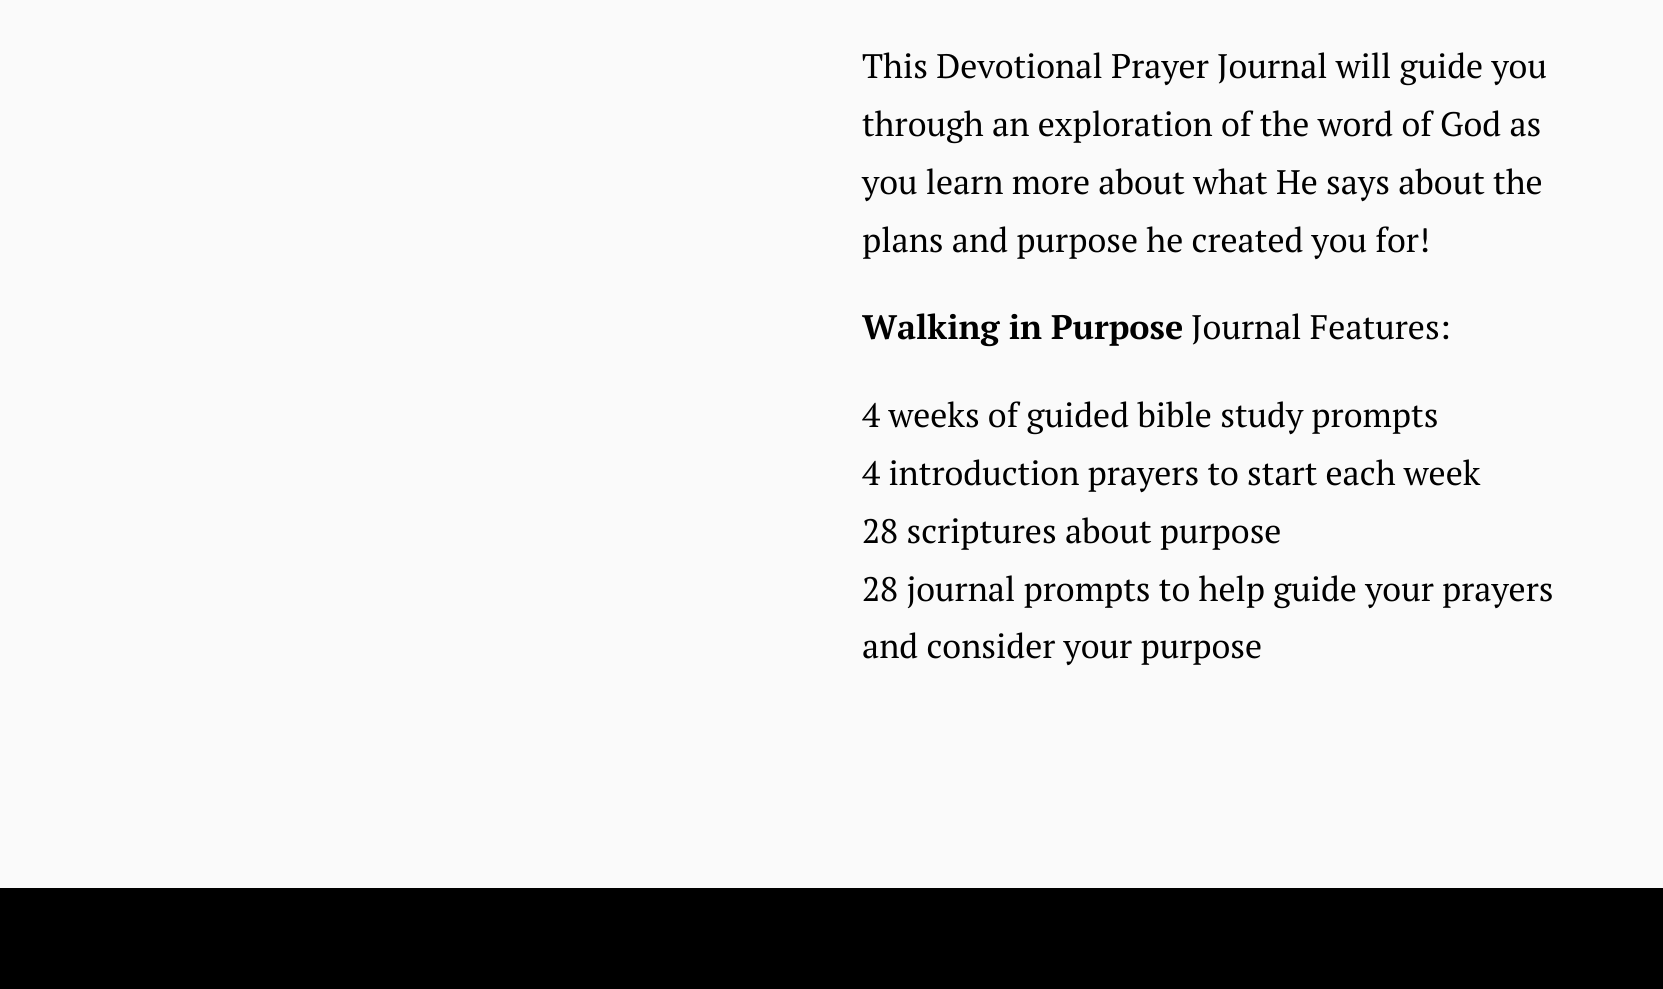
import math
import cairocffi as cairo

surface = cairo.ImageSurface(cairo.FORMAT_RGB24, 1663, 989)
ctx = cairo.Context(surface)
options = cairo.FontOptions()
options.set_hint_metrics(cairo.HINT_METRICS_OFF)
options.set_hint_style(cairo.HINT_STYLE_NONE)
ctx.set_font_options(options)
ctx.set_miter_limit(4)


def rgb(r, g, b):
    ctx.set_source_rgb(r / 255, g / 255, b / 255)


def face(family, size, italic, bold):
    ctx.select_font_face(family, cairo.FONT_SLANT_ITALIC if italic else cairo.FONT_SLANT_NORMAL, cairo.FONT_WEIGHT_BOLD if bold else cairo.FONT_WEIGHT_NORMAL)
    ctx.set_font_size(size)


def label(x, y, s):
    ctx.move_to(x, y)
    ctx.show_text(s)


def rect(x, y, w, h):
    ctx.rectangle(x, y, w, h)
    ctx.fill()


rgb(250, 250, 250)
ctx.paint()
face('PT Serif', 34, 0, 0)
rgb(0, 0, 0)
label(862, 78, 'This Devotional Prayer Journal will guide you')
label(862, 136, 'through an exploration of the word of God as')
label(862, 194, 'you learn more about what He says about the')
label(862, 252, 'plans and purpose he created you for!')
face('PT Serif', 34, 0, 1)
label(862, 339, 'Walking in Purpose')
face('PT Serif', 34, 0, 0)
label(1191, 339, 'Journal Features:')
label(862, 427, '4 weeks of guided bible study prompts')
label(862, 485, '4 introduction prayers to start each week')
label(862, 543, '28 scriptures about purpose')
label(862, 601, '28 journal prompts to help guide your prayers')
label(862, 658, 'and consider your purpose')
rect(0, 888, 1663, 101)
surface.write_to_png('render.png')
